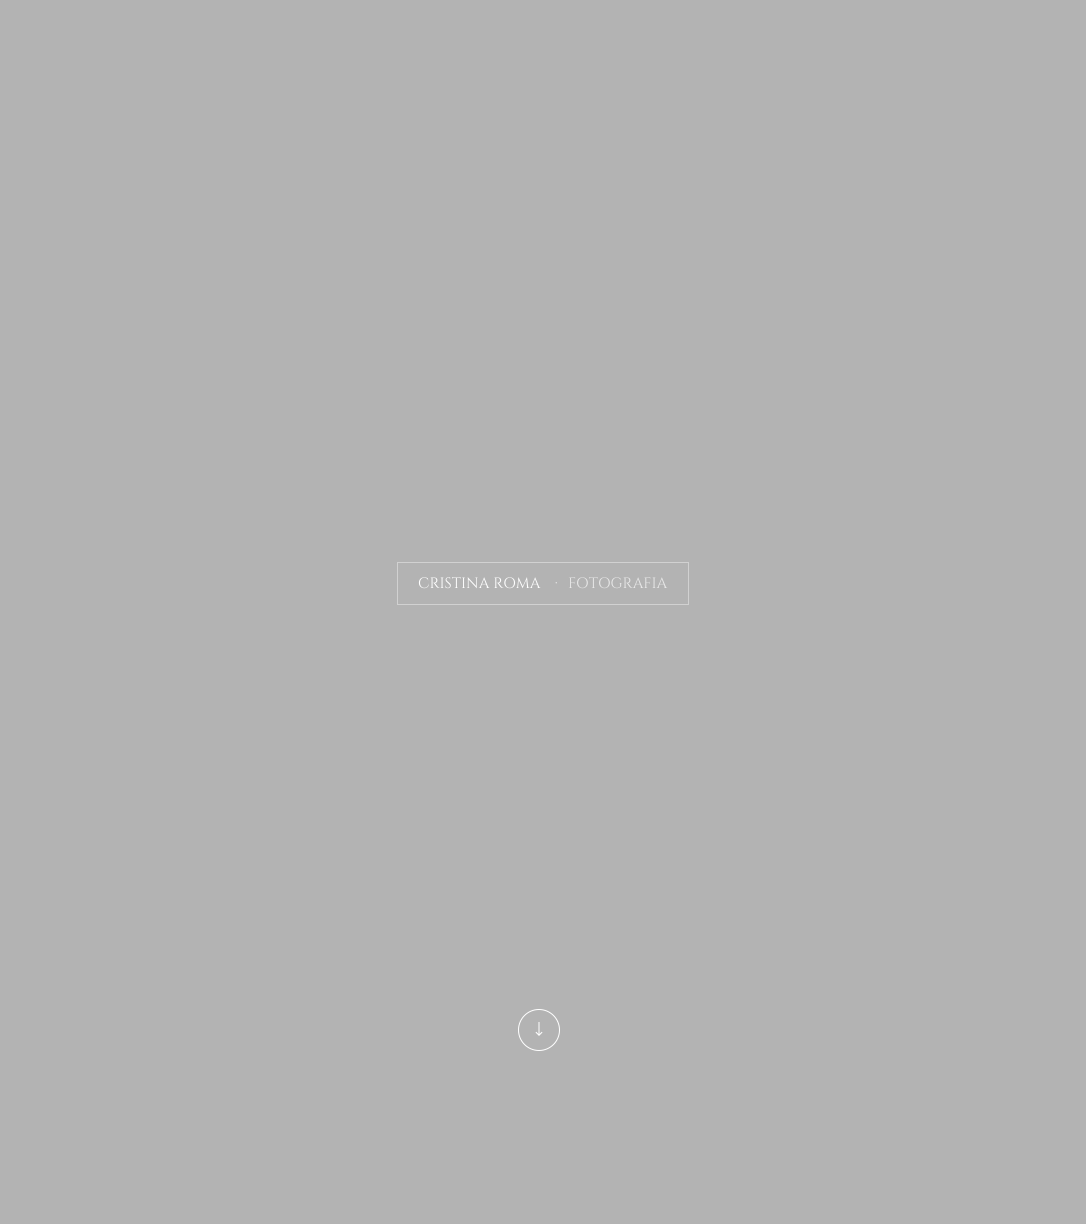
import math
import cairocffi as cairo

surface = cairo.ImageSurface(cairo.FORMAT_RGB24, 1086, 1224)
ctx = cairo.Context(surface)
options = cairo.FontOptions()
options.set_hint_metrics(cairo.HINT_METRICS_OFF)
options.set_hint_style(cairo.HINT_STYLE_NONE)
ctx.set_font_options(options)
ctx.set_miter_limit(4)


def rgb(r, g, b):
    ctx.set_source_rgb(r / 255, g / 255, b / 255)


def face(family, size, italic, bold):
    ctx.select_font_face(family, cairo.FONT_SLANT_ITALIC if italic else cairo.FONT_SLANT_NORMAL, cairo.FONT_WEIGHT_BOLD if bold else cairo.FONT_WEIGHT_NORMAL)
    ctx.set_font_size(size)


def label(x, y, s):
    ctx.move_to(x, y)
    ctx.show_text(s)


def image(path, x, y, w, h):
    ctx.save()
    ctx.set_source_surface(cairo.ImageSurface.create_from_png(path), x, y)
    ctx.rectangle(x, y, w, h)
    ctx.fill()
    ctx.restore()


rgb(179, 179, 179)
ctx.paint()
ctx.rectangle(397.5, 562.5, 291, 42)
rgb(209, 209, 209)
ctx.set_line_width(1)
ctx.stroke()
face('Cinzel', 15, 0, 0)
rgb(255, 255, 255)
label(418, 588, 'CRISTINA ROMA')
rgb(232, 232, 232)
label(555, 588, '·')
label(568, 588, 'FOTOGRAFIA')
ctx.new_path()
ctx.arc(539, 1030, 20.5, 0, 2 * math.pi)
rgb(255, 255, 255)
ctx.stroke()
image('image0.png', 535, 1022, 8, 14)
surface.write_to_png('render.png')
